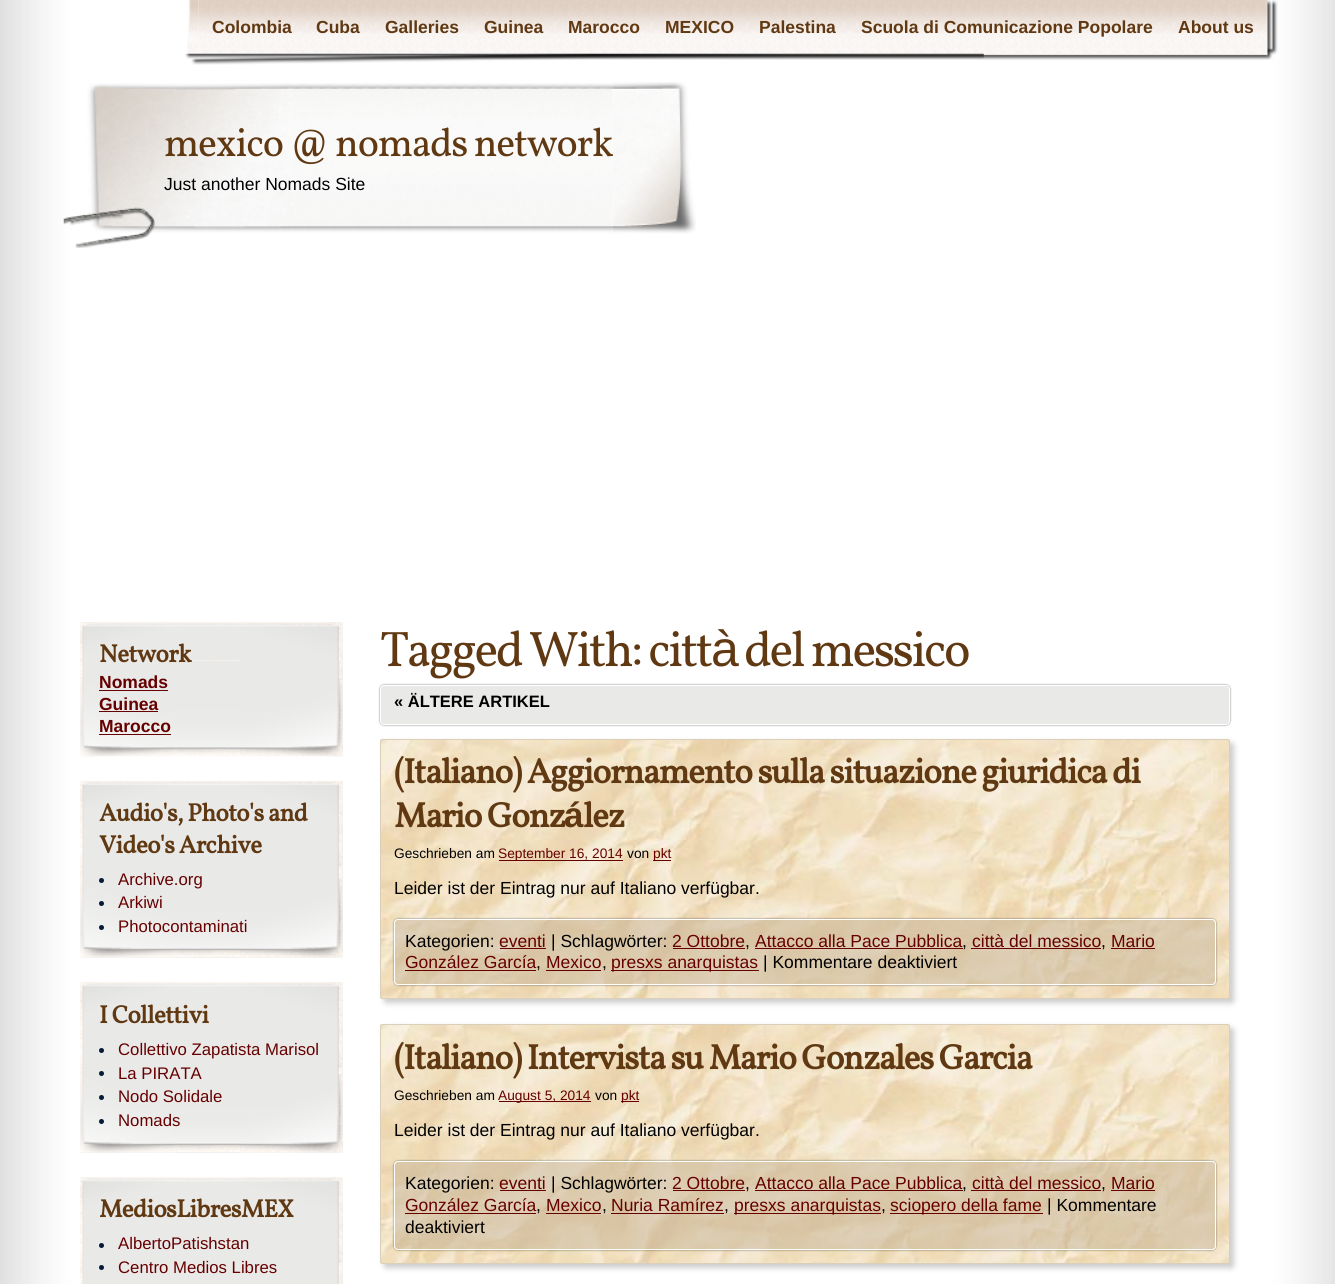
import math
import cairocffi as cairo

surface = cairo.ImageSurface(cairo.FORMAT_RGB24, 1335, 1284)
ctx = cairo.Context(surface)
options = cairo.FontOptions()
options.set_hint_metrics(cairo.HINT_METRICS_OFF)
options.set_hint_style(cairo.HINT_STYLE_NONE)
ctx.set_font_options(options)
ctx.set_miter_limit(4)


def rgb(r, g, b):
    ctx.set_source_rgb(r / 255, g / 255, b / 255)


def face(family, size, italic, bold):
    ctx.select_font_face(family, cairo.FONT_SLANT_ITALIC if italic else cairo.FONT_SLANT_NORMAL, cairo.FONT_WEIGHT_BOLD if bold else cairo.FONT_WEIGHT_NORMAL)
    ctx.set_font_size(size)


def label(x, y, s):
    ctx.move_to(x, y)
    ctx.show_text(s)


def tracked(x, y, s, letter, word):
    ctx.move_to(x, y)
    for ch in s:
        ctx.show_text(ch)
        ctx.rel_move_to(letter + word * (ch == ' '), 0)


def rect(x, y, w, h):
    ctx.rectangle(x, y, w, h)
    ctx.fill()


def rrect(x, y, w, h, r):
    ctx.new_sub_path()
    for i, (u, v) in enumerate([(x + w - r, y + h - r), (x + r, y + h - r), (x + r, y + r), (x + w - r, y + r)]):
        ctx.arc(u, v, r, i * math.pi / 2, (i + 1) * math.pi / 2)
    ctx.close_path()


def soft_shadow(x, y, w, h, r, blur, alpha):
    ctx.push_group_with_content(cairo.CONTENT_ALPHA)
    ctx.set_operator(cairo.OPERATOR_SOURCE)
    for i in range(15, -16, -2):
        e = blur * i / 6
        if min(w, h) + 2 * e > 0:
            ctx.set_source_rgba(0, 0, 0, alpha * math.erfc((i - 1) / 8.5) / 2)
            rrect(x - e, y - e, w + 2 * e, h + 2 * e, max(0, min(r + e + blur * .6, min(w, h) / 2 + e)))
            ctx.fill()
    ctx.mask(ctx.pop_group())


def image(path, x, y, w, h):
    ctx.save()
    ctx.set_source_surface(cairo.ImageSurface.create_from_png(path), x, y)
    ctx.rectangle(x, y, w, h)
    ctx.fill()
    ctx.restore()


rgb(255, 255, 255)
ctx.paint()
image('image0.png', 0, 0, 1335, 1284)
image('image1.png', 187, 0, 12, 55)
image('image2.png', 1266, 0, 12, 60)
image('image3.png', 198, 0, 1069, 60)
face('Liberation Sans', 17.5, 0, 1)
rgb(96, 57, 19)
label(212, 33, 'Colombia')
label(316, 33, 'Cuba')
label(385, 33, 'Galleries')
label(484, 33, 'Guinea')
label(568, 33, 'Marocco')
label(665, 33, 'MEXICO')
label(759, 33, 'Palestina')
label(861, 33, 'Scuola di Comunicazione Popolare')
label(1178, 33, 'About us')
image('image4.png', 185, 53, 799, 12)
image('image5.png', 612, 82, 84, 152)
image('image6.png', 63, 83, 550, 165)
face('Vollkorn', 40, 0, 0)
tracked(164, 156, 'mexico @ nomads network', -1.25, 0)
face('Liberation Sans', 17.5, 0, 0)
rgb(0, 0, 0)
label(164, 190, 'Just another Nomads Site')
rgb(233, 233, 232)
rect(95, 623, 248, 133)
image('image7.png', 80, 622, 263, 135)
face('Vollkorn', 25, 0, 1)
rgb(96, 57, 19)
tracked(99, 662, 'Network', -0.6, 0)
face('Liberation Sans', 17.5, 0, 1)
rgb(102, 0, 0)
label(99, 688, 'Nomads')
rect(99, 690, 69, 1)
label(99, 710, 'Guinea')
rect(99, 711, 59, 1)
label(99, 732, 'Marocco')
rect(99, 734, 72, 1)
rgb(233, 233, 232)
rect(80, 781, 263, 177)
image('image8.png', 80, 781, 263, 177)
face('Vollkorn', 25, 0, 1)
rgb(96, 57, 19)
tracked(99, 821, 'Audio\'s, Photo\'s and', -0.6, 0)
tracked(99, 853, 'Video\'s Archive', -0.6, 0)
rgb(4, 26, 54)
ctx.new_path()
ctx.arc(101.5, 880.5, 2.5, 0, 2 * math.pi)
ctx.fill()
face('Liberation Sans', 16.75, 0, 0)
rgb(102, 0, 0)
label(118, 885, 'Archive.org')
rgb(4, 26, 54)
ctx.new_path()
ctx.arc(101.5, 903.5, 2.5, 0, 2 * math.pi)
ctx.fill()
rgb(102, 0, 0)
label(118, 908, 'Arkiwi')
rgb(4, 26, 54)
ctx.new_path()
ctx.arc(101.5, 927.5, 2.5, 0, 2 * math.pi)
ctx.fill()
rgb(102, 0, 0)
label(118, 932, 'Photocontaminati')
rgb(233, 233, 232)
rect(80, 983, 263, 170)
image('image9.png', 80, 982, 263, 171)
face('Vollkorn', 25, 0, 1)
rgb(96, 57, 19)
tracked(99, 1023, 'I Collettivi', -0.6, 0)
rgb(4, 26, 54)
ctx.new_path()
ctx.arc(101.5, 1050.5, 2.5, 0, 2 * math.pi)
ctx.fill()
face('Liberation Sans', 16.75, 0, 0)
rgb(102, 0, 0)
label(118, 1055, 'Collettivo Zapatista Marisol')
rgb(4, 26, 54)
ctx.new_path()
ctx.arc(101.5, 1073.5, 2.5, 0, 2 * math.pi)
ctx.fill()
rgb(102, 0, 0)
label(118, 1079, 'La PIRATA')
rgb(4, 26, 54)
ctx.new_path()
ctx.arc(101.5, 1097.5, 2.5, 0, 2 * math.pi)
ctx.fill()
rgb(102, 0, 0)
label(118, 1102, 'Nodo Solidale')
rgb(4, 26, 54)
ctx.new_path()
ctx.arc(101.5, 1121.5, 2.5, 0, 2 * math.pi)
ctx.fill()
rgb(102, 0, 0)
label(118, 1126, 'Nomads')
rgb(233, 233, 232)
rect(95, 1178, 248, 106)
image('image10.png', 80, 1177, 263, 107)
face('Vollkorn', 25, 0, 1)
rgb(96, 57, 19)
tracked(99, 1217, 'MediosLibresMEX', -0.6, 0)
rgb(4, 26, 54)
ctx.new_path()
ctx.arc(101.5, 1245.5, 2.5, 0, 2 * math.pi)
ctx.fill()
face('Liberation Sans', 16.75, 0, 0)
rgb(102, 0, 0)
label(118, 1249, 'AlbertoPatishstan')
rgb(4, 26, 54)
ctx.new_path()
ctx.arc(101.5, 1267.5, 2.5, 0, 2 * math.pi)
ctx.fill()
rgb(102, 0, 0)
label(118, 1273, 'Centro Medios Libres')
face('Vollkorn', 50, 0, 0)
rgb(96, 57, 19)
tracked(380, 666, 'Tagged With: citt', -2.5, 0)
face('Liberation Sans', 50, 0, 0)
tracked(711, 666, 'à', -2.5, 0)
face('Vollkorn', 50, 0, 0)
tracked(744, 666, 'del messico', -2.5, 0)
rgb(0, 0, 0)
soft_shadow(380, 685, 850, 40, 4, 1, 0.5)
rgb(233, 233, 232)
rrect(380.5, 685.5, 849, 39, 3.5)
ctx.fill_preserve()
rgb(255, 255, 255)
ctx.set_line_width(1)
ctx.stroke()
face('Liberation Sans', 16.5, 0, 1)
rgb(0, 0, 0)
label(394, 707, '« ÄLTERE ARTIKEL')
rgb(0, 0, 0)
soft_shadow(384, 743, 850, 260, 2.5, 3, 0.2)
image('image11.png', 380, 738, 850, 261)
rrect(380.5, 739.5, 849, 259, 2)
rgb(218, 207, 186)
ctx.stroke()
face('Vollkorn', 35, 0, 1)
rgb(96, 57, 19)
tracked(394, 783, '(Italiano) Aggiornamento sulla situazione giuridica di', -1.25, 0)
tracked(394, 827, 'Mario Gonz', -1.25, 0)
face('Liberation Sans', 35, 0, 1)
tracked(564, 827, 'á', -1.25, 0)
face('Vollkorn', 35, 0, 1)
tracked(583, 827, 'lez', -1.25, 0)
face('Liberation Sans', 13.75, 0, 0)
rgb(0, 0, 0)
label(394, 858, 'Geschrieben am')
rgb(102, 0, 0)
rect(499, 860, 124, 1)
label(498, 858, 'September 16, 2014')
rgb(0, 0, 0)
label(627, 858, 'von')
rgb(102, 0, 0)
rect(653, 860, 18, 1)
label(653, 858, 'pkt')
face('Liberation Sans', 17.5, 0, 0)
rgb(0, 0, 0)
label(394, 894, 'Leider ist der Eintrag nur auf Italiano verfügbar.')
ctx.save()
ctx.set_fill_rule(cairo.FILL_RULE_EVEN_ODD)
ctx.new_path()
ctx.move_to(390, 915)
ctx.line_to(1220, 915)
ctx.line_to(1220, 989)
ctx.line_to(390, 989)
ctx.close_path()
ctx.move_to(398, 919)
ctx.line_to(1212, 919)
ctx.curve_to(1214, 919, 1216, 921, 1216, 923)
ctx.line_to(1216, 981)
ctx.curve_to(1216, 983, 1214, 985, 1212, 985)
ctx.line_to(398, 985)
ctx.curve_to(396, 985, 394, 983, 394, 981)
ctx.line_to(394, 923)
ctx.curve_to(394, 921, 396, 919, 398, 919)
ctx.close_path()
ctx.clip()
rgb(0, 0, 0)
soft_shadow(394, 919, 822, 66, 4, 1, 0.5)
ctx.restore()
ctx.set_source_rgba(0.776, 0.706, 0.6, 0.5)
rrect(394.5, 919.5, 821, 65, 3.5)
ctx.fill_preserve()
rgb(255, 255, 255)
ctx.stroke()
rgb(0, 0, 0)
label(405, 947, 'Kategorien:')
rgb(102, 0, 0)
label(499, 947, 'eventi')
rect(500, 948, 46, 1)
rgb(0, 0, 0)
label(551, 947, '| Schlagwörter:')
rgb(102, 0, 0)
label(672, 947, '2 Ottobre')
rgb(0, 0, 0)
label(745, 947, ',')
rgb(102, 0, 0)
rect(673, 948, 72, 1)
label(755, 947, 'Attacco alla Pace Pubblica')
rgb(0, 0, 0)
label(962, 947, ',')
rgb(102, 0, 0)
rect(755, 948, 208, 1)
label(972, 947, 'città del messico')
rgb(0, 0, 0)
label(1101, 947, ',')
rgb(102, 0, 0)
rect(971, 948, 130, 1)
rect(1111, 948, 44, 1)
label(1111, 947, 'Mario')
label(405, 968, 'González García')
rgb(0, 0, 0)
label(536, 968, ',')
rgb(102, 0, 0)
rect(405, 970, 131, 1)
label(546, 968, 'Mexico')
rgb(0, 0, 0)
label(602, 968, ',')
rgb(102, 0, 0)
rect(546, 970, 55, 1)
rect(611, 970, 148, 1)
label(611, 968, 'presxs anarquistas')
rgb(0, 0, 0)
label(763, 968, '| Kommentare deaktiviert')
rgb(0, 0, 0)
soft_shadow(384, 1028, 850, 240, 2.5, 3, 0.2)
image('image12.png', 380, 1023, 850, 241)
rrect(380.5, 1024.5, 849, 239, 2)
rgb(218, 207, 186)
ctx.stroke()
face('Vollkorn', 35, 0, 1)
rgb(96, 57, 19)
tracked(394, 1069, '(Italiano) Intervista su Mario Gonzales Garcia', -1.25, 0)
face('Liberation Sans', 13.75, 0, 0)
rgb(0, 0, 0)
label(394, 1100, 'Geschrieben am')
rgb(102, 0, 0)
rect(499, 1101, 92, 1)
label(498, 1100, 'August 5, 2014')
rgb(0, 0, 0)
label(595, 1100, 'von')
rgb(102, 0, 0)
rect(621, 1101, 18, 1)
label(621, 1100, 'pkt')
face('Liberation Sans', 17.5, 0, 0)
rgb(0, 0, 0)
label(394, 1136, 'Leider ist der Eintrag nur auf Italiano verfügbar.')
ctx.save()
ctx.set_fill_rule(cairo.FILL_RULE_EVEN_ODD)
ctx.new_path()
ctx.move_to(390, 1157)
ctx.line_to(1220, 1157)
ctx.line_to(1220, 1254)
ctx.line_to(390, 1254)
ctx.close_path()
ctx.move_to(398, 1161)
ctx.line_to(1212, 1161)
ctx.curve_to(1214, 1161, 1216, 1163, 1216, 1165)
ctx.line_to(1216, 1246)
ctx.curve_to(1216, 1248, 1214, 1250, 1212, 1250)
ctx.line_to(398, 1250)
ctx.curve_to(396, 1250, 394, 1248, 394, 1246)
ctx.line_to(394, 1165)
ctx.curve_to(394, 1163, 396, 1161, 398, 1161)
ctx.close_path()
ctx.clip()
rgb(0, 0, 0)
soft_shadow(394, 1161, 822, 89, 4, 1, 0.5)
ctx.restore()
ctx.set_source_rgba(0.776, 0.706, 0.6, 0.5)
rrect(394.5, 1161.5, 821, 88, 3.5)
ctx.fill_preserve()
rgb(255, 255, 255)
ctx.stroke()
rgb(0, 0, 0)
label(405, 1189, 'Kategorien:')
rgb(102, 0, 0)
label(499, 1189, 'eventi')
rect(500, 1190, 46, 1)
rgb(0, 0, 0)
label(551, 1189, '| Schlagwörter:')
rgb(102, 0, 0)
label(672, 1189, '2 Ottobre')
rgb(0, 0, 0)
label(745, 1189, ',')
rgb(102, 0, 0)
rect(673, 1190, 72, 1)
label(755, 1189, 'Attacco alla Pace Pubblica')
rgb(0, 0, 0)
label(962, 1189, ',')
rgb(102, 0, 0)
rect(755, 1190, 208, 1)
label(972, 1189, 'città del messico')
rgb(0, 0, 0)
label(1101, 1189, ',')
rgb(102, 0, 0)
rect(971, 1190, 130, 1)
rect(1111, 1190, 44, 1)
label(1111, 1189, 'Mario')
label(405, 1211, 'González García')
rgb(0, 0, 0)
label(536, 1211, ',')
rgb(102, 0, 0)
rect(405, 1213, 131, 1)
label(546, 1211, 'Mexico')
rgb(0, 0, 0)
label(602, 1211, ',')
rgb(102, 0, 0)
rect(546, 1213, 55, 1)
label(611, 1211, 'Nuria Ramírez')
rgb(0, 0, 0)
label(724, 1211, ',')
rgb(102, 0, 0)
rect(611, 1213, 113, 1)
rect(734, 1213, 147, 1)
label(734, 1211, 'presxs anarquistas')
rgb(0, 0, 0)
label(881, 1211, ',')
rgb(102, 0, 0)
rect(890, 1213, 153, 1)
label(890, 1211, 'sciopero della fame')
rgb(0, 0, 0)
label(1047, 1211, '| Kommentare')
label(405, 1233, 'deaktiviert')
surface.write_to_png('render.png')
